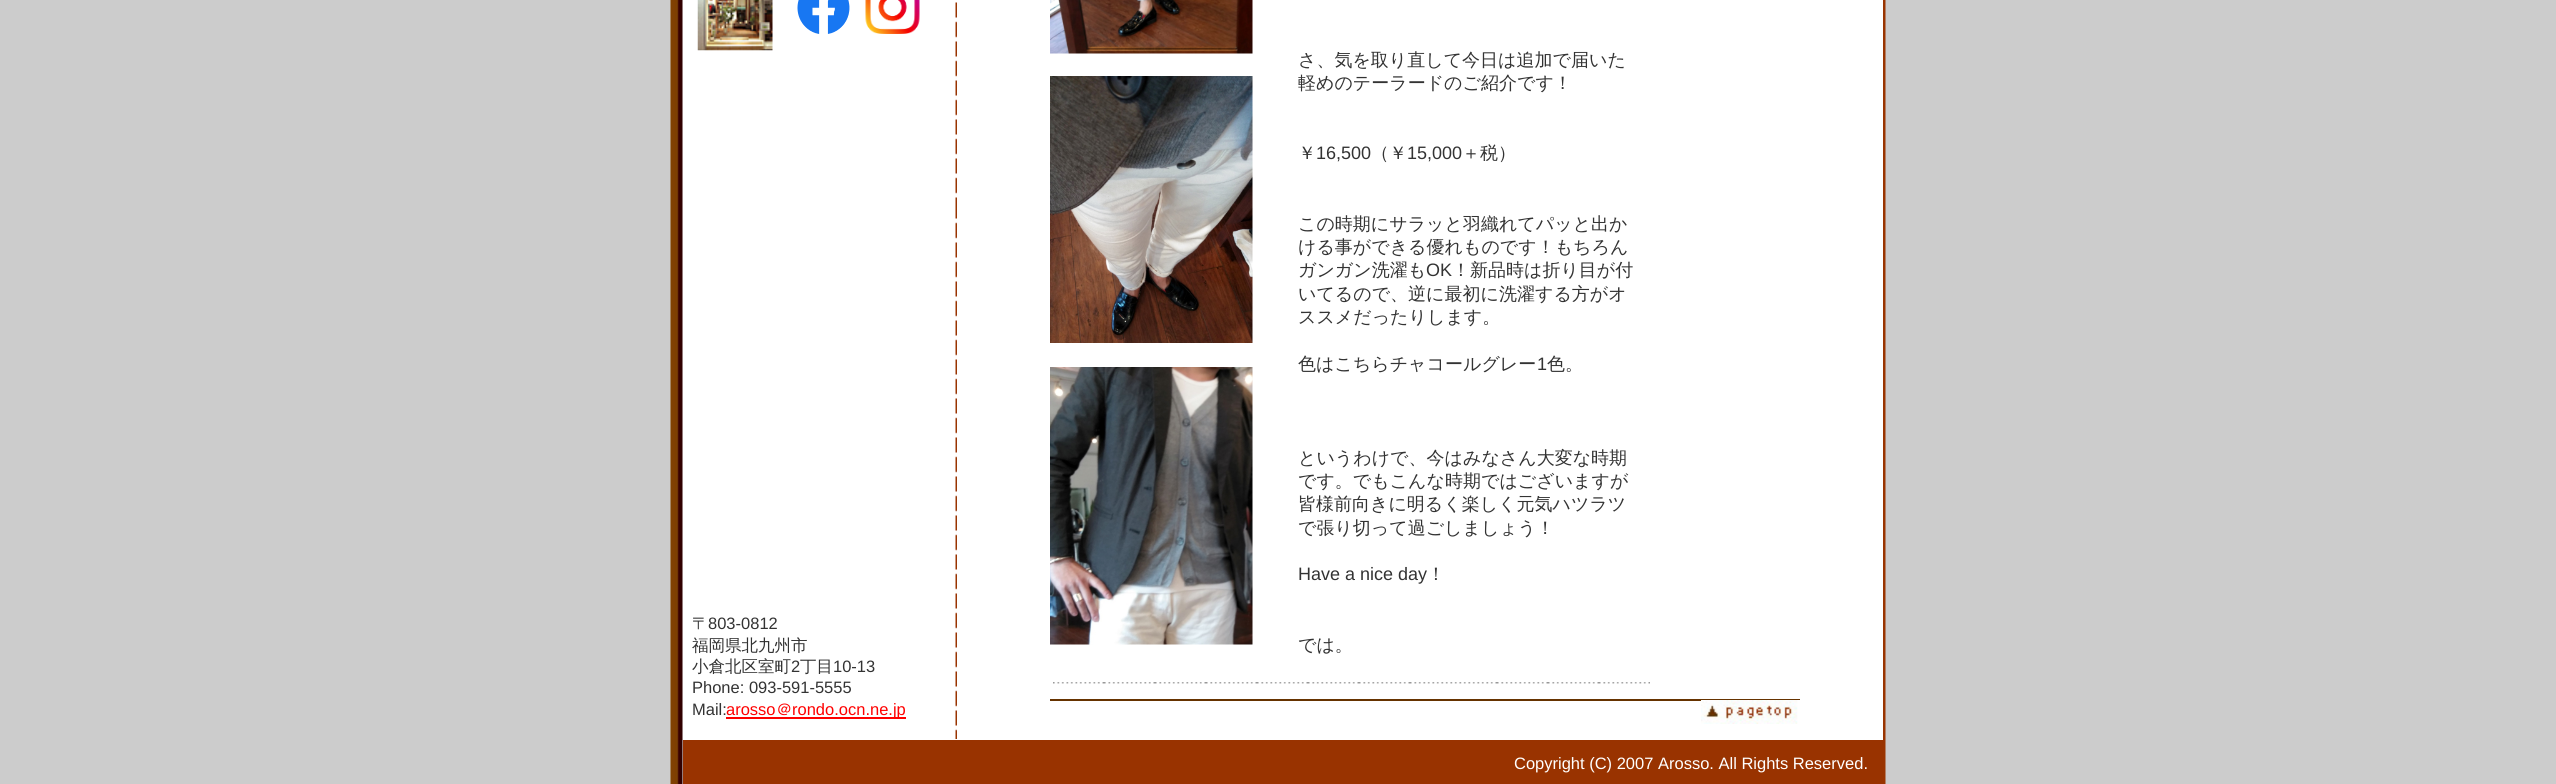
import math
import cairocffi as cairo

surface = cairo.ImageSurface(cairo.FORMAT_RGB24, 2556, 784)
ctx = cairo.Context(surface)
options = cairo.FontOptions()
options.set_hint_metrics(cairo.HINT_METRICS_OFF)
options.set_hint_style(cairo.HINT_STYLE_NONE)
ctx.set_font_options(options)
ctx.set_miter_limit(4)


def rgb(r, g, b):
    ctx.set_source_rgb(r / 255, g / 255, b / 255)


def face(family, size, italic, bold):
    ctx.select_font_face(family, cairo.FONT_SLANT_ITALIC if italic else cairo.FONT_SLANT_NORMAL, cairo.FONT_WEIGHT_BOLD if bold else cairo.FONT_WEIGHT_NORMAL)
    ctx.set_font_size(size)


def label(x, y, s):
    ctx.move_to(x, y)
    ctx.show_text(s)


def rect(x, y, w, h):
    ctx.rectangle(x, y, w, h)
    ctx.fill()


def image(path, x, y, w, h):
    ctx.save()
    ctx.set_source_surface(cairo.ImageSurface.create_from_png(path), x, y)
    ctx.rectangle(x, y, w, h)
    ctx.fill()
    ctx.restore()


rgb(204, 204, 204)
ctx.paint()
image('image0.png', 670, 0, 1216, 784)
rgb(255, 255, 255)
rect(683, 0, 1200, 740)
image('image1.png', 697, 0, 76, 51)
image('image2.png', 797, 0, 53, 34)
image('image3.png', 865, 0, 55, 34)
image('image4.png', 955, 2, 2, 737)
image('image5.png', 1050, 0, 203, 54)
image('image6.png', 1050, 76, 203, 267)
image('image7.png', 1050, 367, 203, 278)
face('WenQuanYi Zen Hei Medium', 18, 0, 0)
rgb(51, 51, 51)
label(1298, 66, 'さ、気を取り直して今日は追加で届いた')
label(1298, 89, '軽めのテーラードのご紹介です！')
label(1298, 159, '￥')
face('Liberation Sans', 18, 0, 0)
label(1316, 159, '16,500')
face('WenQuanYi Zen Hei Medium', 18, 0, 0)
label(1371, 159, '（￥')
face('Liberation Sans', 18, 0, 0)
label(1407, 159, '15,000')
face('WenQuanYi Zen Hei Medium', 18, 0, 0)
label(1462, 159, '＋税）')
label(1298, 230, 'この時期にサラッと羽織れてパッと出か')
label(1298, 253, 'ける事ができる優れものです！もちろん')
label(1298, 276, 'ガンガン洗濯も')
face('Liberation Sans', 18, 0, 0)
label(1426, 276, 'OK')
face('WenQuanYi Zen Hei Medium', 18, 0, 0)
label(1452, 276, '！新品時は折り目が付')
label(1298, 300, 'いてるので、逆に最初に洗濯する方がオ')
label(1298, 323, 'ススメだったりします。')
label(1298, 370, '色はこちらチャコールグレー')
face('Liberation Sans', 18, 0, 0)
label(1537, 370, '1')
face('WenQuanYi Zen Hei Medium', 18, 0, 0)
label(1547, 370, '色。')
label(1298, 464, 'というわけで、今はみなさん大変な時期')
label(1298, 487, 'です。でもこんな時期ではございますが')
label(1298, 510, '皆様前向きに明るく楽しく元気ハツラツ')
label(1298, 534, 'で張り切って過ごしましょう！')
face('Liberation Sans', 18, 0, 0)
label(1298, 580, 'Have a nice day')
face('WenQuanYi Zen Hei Medium', 18, 0, 0)
label(1427, 580, '！')
label(1298, 651, 'では。')
image('image8.png', 1053, 682, 597, 2)
rgb(102, 51, 0)
rect(1050, 699, 750, 2)
image('image9.png', 1701, 700, 99, 24)
rgb(153, 51, 0)
rect(683, 740, 1200, 44)
face('WenQuanYi Zen Hei Medium', 16.5, 0, 0)
rgb(51, 51, 51)
label(692, 629, '〒')
face('Liberation Sans', 16.5, 0, 0)
label(708, 629, '803-0812')
face('WenQuanYi Zen Hei Medium', 16.5, 0, 0)
label(692, 651, '福岡県北九州市')
label(692, 672, '小倉北区室町')
face('Liberation Sans', 16.5, 0, 0)
label(791, 672, '2')
face('WenQuanYi Zen Hei Medium', 16.5, 0, 0)
label(800, 672, '丁目')
face('Liberation Sans', 16.5, 0, 0)
label(833, 672, '10-13')
label(692, 693, 'Phone: 093-591-5555')
label(692, 715, 'Mail:')
rgb(255, 0, 0)
label(726, 715, 'arosso')
rect(726, 717, 180, 2)
face('WenQuanYi Zen Hei Medium', 16.5, 0, 0)
label(776, 715, '＠')
face('Liberation Sans', 16.5, 0, 0)
label(792, 715, 'rondo.ocn.ne.jp')
rgb(255, 255, 255)
label(1514, 769, 'Copyright (C) 2007 Arosso. All Rights Reserved.')
surface.write_to_png('render.png')
